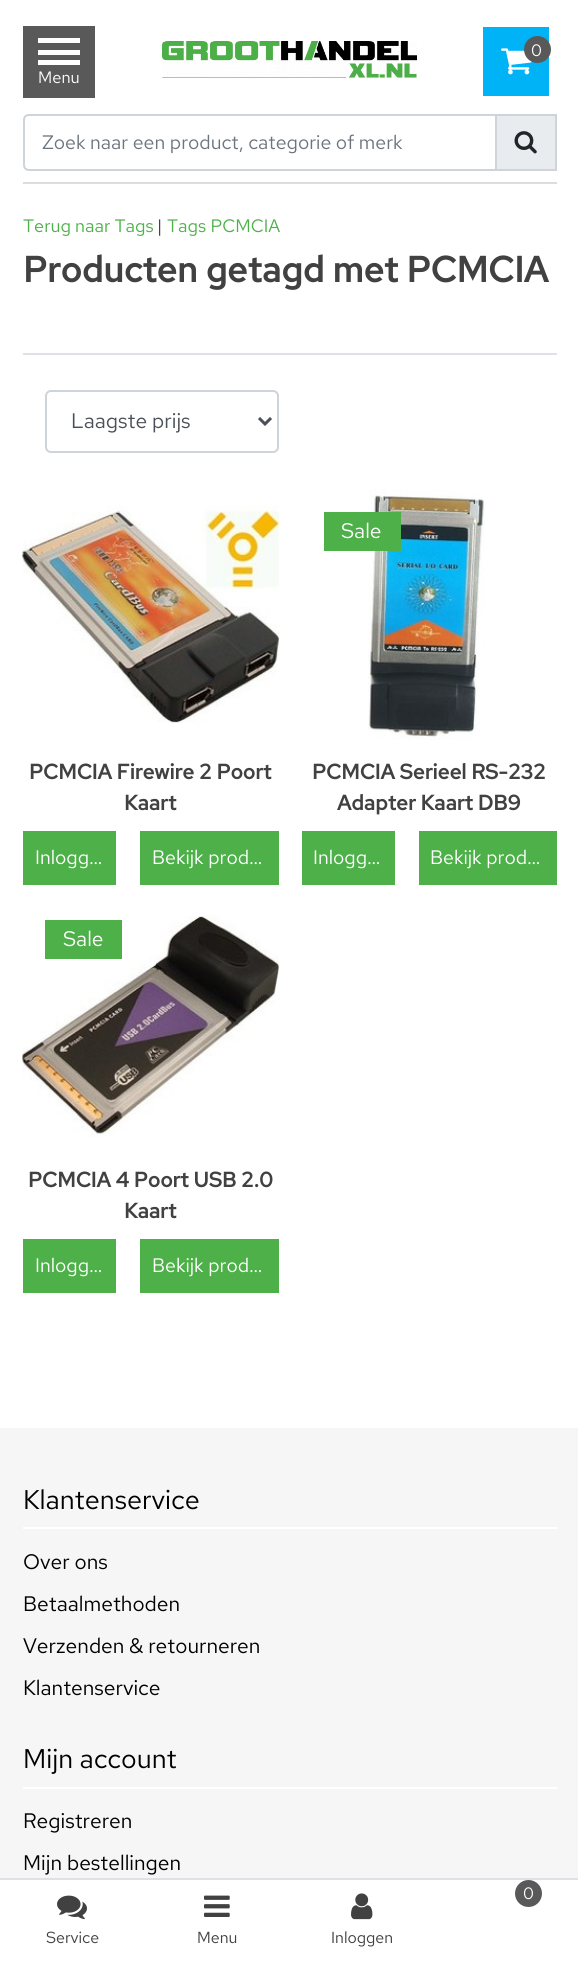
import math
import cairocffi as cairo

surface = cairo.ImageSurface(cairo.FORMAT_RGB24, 578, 1961)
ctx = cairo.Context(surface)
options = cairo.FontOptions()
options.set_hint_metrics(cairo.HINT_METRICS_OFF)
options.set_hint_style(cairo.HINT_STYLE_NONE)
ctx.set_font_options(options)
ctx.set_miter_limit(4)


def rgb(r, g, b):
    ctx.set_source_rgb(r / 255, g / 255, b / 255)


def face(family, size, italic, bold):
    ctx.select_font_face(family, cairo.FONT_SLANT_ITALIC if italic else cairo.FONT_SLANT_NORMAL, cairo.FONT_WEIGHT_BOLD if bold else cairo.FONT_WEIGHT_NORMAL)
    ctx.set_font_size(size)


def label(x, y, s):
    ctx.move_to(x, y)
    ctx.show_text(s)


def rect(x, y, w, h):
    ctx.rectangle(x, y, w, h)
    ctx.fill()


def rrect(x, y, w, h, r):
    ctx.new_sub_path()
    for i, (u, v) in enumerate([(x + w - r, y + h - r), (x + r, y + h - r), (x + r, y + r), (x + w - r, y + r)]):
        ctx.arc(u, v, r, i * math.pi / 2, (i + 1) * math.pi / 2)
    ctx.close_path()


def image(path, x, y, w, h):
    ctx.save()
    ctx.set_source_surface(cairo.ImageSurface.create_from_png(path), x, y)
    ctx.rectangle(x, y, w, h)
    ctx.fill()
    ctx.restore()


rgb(255, 255, 255)
ctx.paint()
image('image0.png', 162, 41, 255, 37)
rgb(0, 179, 246)
rect(483, 27, 66, 69)
image('image1.png', 501, 48, 31, 27)
rgb(90, 89, 90)
ctx.arc(537.5, 49.5, 13.5, 0, 2 * math.pi)
ctx.fill()
face('Red Hat Text', 16.5, 0, 0)
rgb(255, 255, 255)
label(531, 56, '0')
rgb(90, 89, 90)
rect(23, 26, 72, 72)
rgb(255, 255, 255)
rect(38, 38, 42, 5)
rect(38, 50, 42, 5)
rect(38, 60, 42, 5)
label(38, 83, 'Menu')
rgb(233, 236, 239)
ctx.rectangle(496, 115, 60, 55)
ctx.fill_preserve()
rgb(206, 212, 218)
ctx.stroke()
ctx.new_path()
ctx.move_to(29, 115)
ctx.line_to(496, 115)
ctx.line_to(496, 170)
ctx.line_to(29, 170)
ctx.curve_to(26, 170, 24, 168, 24, 165)
ctx.line_to(24, 120)
ctx.curve_to(24, 117, 26, 115, 29, 115)
ctx.close_path()
ctx.stroke()
face('Red Hat Text', 19.5, 0, 0)
rgb(108, 117, 125)
label(42, 149, 'Zoek naar een product, categorie of merk')
image('image2.png', 514, 131, 23, 23)
rgb(221, 221, 221)
rect(23, 182, 534, 2)
face('Red Hat Text', 18, 0, 0)
rgb(77, 176, 72)
label(23, 232, 'Terug naar Tags')
rgb(65, 65, 65)
label(157, 232, '|')
rgb(77, 176, 72)
label(167, 232, 'Tags PCMCIA')
rgb(222, 226, 230)
rect(23, 353, 534, 2)
face('Red Hat Text', 36, 0, 1)
rgb(65, 65, 65)
label(23, 282, 'Producten getagd met PCMCIA')
rrect(46, 391, 232, 61, 5)
rgb(206, 212, 218)
ctx.stroke()
ctx.new_path()
ctx.move_to(259, 418)
ctx.line_to(265, 424)
ctx.line_to(271, 418)
rgb(73, 80, 87)
ctx.set_line_width(3)
ctx.stroke()
face('Red Hat Text', 21, 0, 0)
label(71, 428, 'Laagste prijs')
image('image3.png', 22, 506, 257, 217)
face('Red Hat Text', 21, 0, 1)
rgb(65, 65, 65)
label(29, 779, 'PCMCIA Firewire 2 Poort')
label(124, 810, 'Kaart')
rgb(77, 176, 72)
rect(23, 831, 93, 54)
face('Red Hat Text', 19.5, 0, 0)
rgb(255, 255, 255)
label(35, 864, 'Inlogg…')
rgb(77, 176, 72)
rect(140, 831, 139, 54)
rgb(255, 255, 255)
label(152, 864, 'Bekijk prod…')
image('image4.png', 368, 489, 117, 251)
rgb(77, 176, 72)
rect(324, 512, 77, 39)
face('Red Hat Text', 21, 0, 0)
rgb(255, 255, 255)
label(341, 538, 'Sale')
face('Red Hat Text', 21, 0, 1)
rgb(65, 65, 65)
label(312, 779, 'PCMCIA Serieel RS-232')
label(337, 810, 'Adapter Kaart DB9')
rgb(77, 176, 72)
rect(302, 831, 93, 54)
face('Red Hat Text', 19.5, 0, 0)
rgb(255, 255, 255)
label(313, 864, 'Inlogg…')
rgb(77, 176, 72)
rect(419, 831, 138, 54)
rgb(255, 255, 255)
label(430, 864, 'Bekijk prod…')
image('image5.png', 22, 915, 257, 222)
rgb(77, 176, 72)
rect(45, 920, 77, 39)
face('Red Hat Text', 21, 0, 0)
rgb(255, 255, 255)
label(63, 946, 'Sale')
face('Red Hat Text', 21, 0, 1)
rgb(65, 65, 65)
label(28, 1187, 'PCMCIA 4 Poort USB 2.0')
label(124, 1218, 'Kaart')
rgb(77, 176, 72)
rect(23, 1239, 93, 54)
face('Red Hat Text', 19.5, 0, 0)
rgb(255, 255, 255)
label(35, 1272, 'Inlogg…')
rgb(77, 176, 72)
rect(140, 1239, 139, 54)
rgb(255, 255, 255)
label(152, 1272, 'Bekijk prod…')
rgb(246, 246, 246)
rect(0, 1428, 578, 450)
rgb(255, 255, 255)
rect(23, 1527, 534, 2)
face('Red Hat Text', 27, 0, 0)
rgb(0, 0, 0)
label(23, 1509, 'Klantenservice')
face('Red Hat Text', 21, 0, 0)
label(23, 1569, 'Over ons')
label(23, 1611, 'Betaalmethoden')
label(23, 1653, 'Verzenden & retourneren')
label(23, 1695, 'Klantenservice')
rgb(255, 255, 255)
rect(23, 1787, 534, 2)
face('Red Hat Text', 27, 0, 0)
rgb(0, 0, 0)
label(23, 1768, 'Mijn account')
face('Red Hat Text', 21, 0, 0)
label(23, 1828, 'Registreren')
label(23, 1870, 'Mijn bestellingen')
rgb(222, 226, 230)
rect(0, 1878, 578, 2)
rgb(90, 89, 90)
ctx.new_path()
ctx.arc(528.5, 1893.5, 13.5, 0, 2 * math.pi)
ctx.fill()
face('Red Hat Text', 16.5, 0, 0)
rgb(255, 255, 255)
label(523, 1899, '0')
image('image6.png', 57, 1895, 30, 25)
face('Red Hat Text', 16, 0, 0)
rgb(65, 65, 65)
label(46, 1943, 'Service')
image('image7.png', 204, 1895, 26, 22)
label(197, 1943, 'Menu')
image('image8.png', 351, 1893, 22, 27)
label(331, 1943, 'Inloggen')
surface.write_to_png('render.png')
